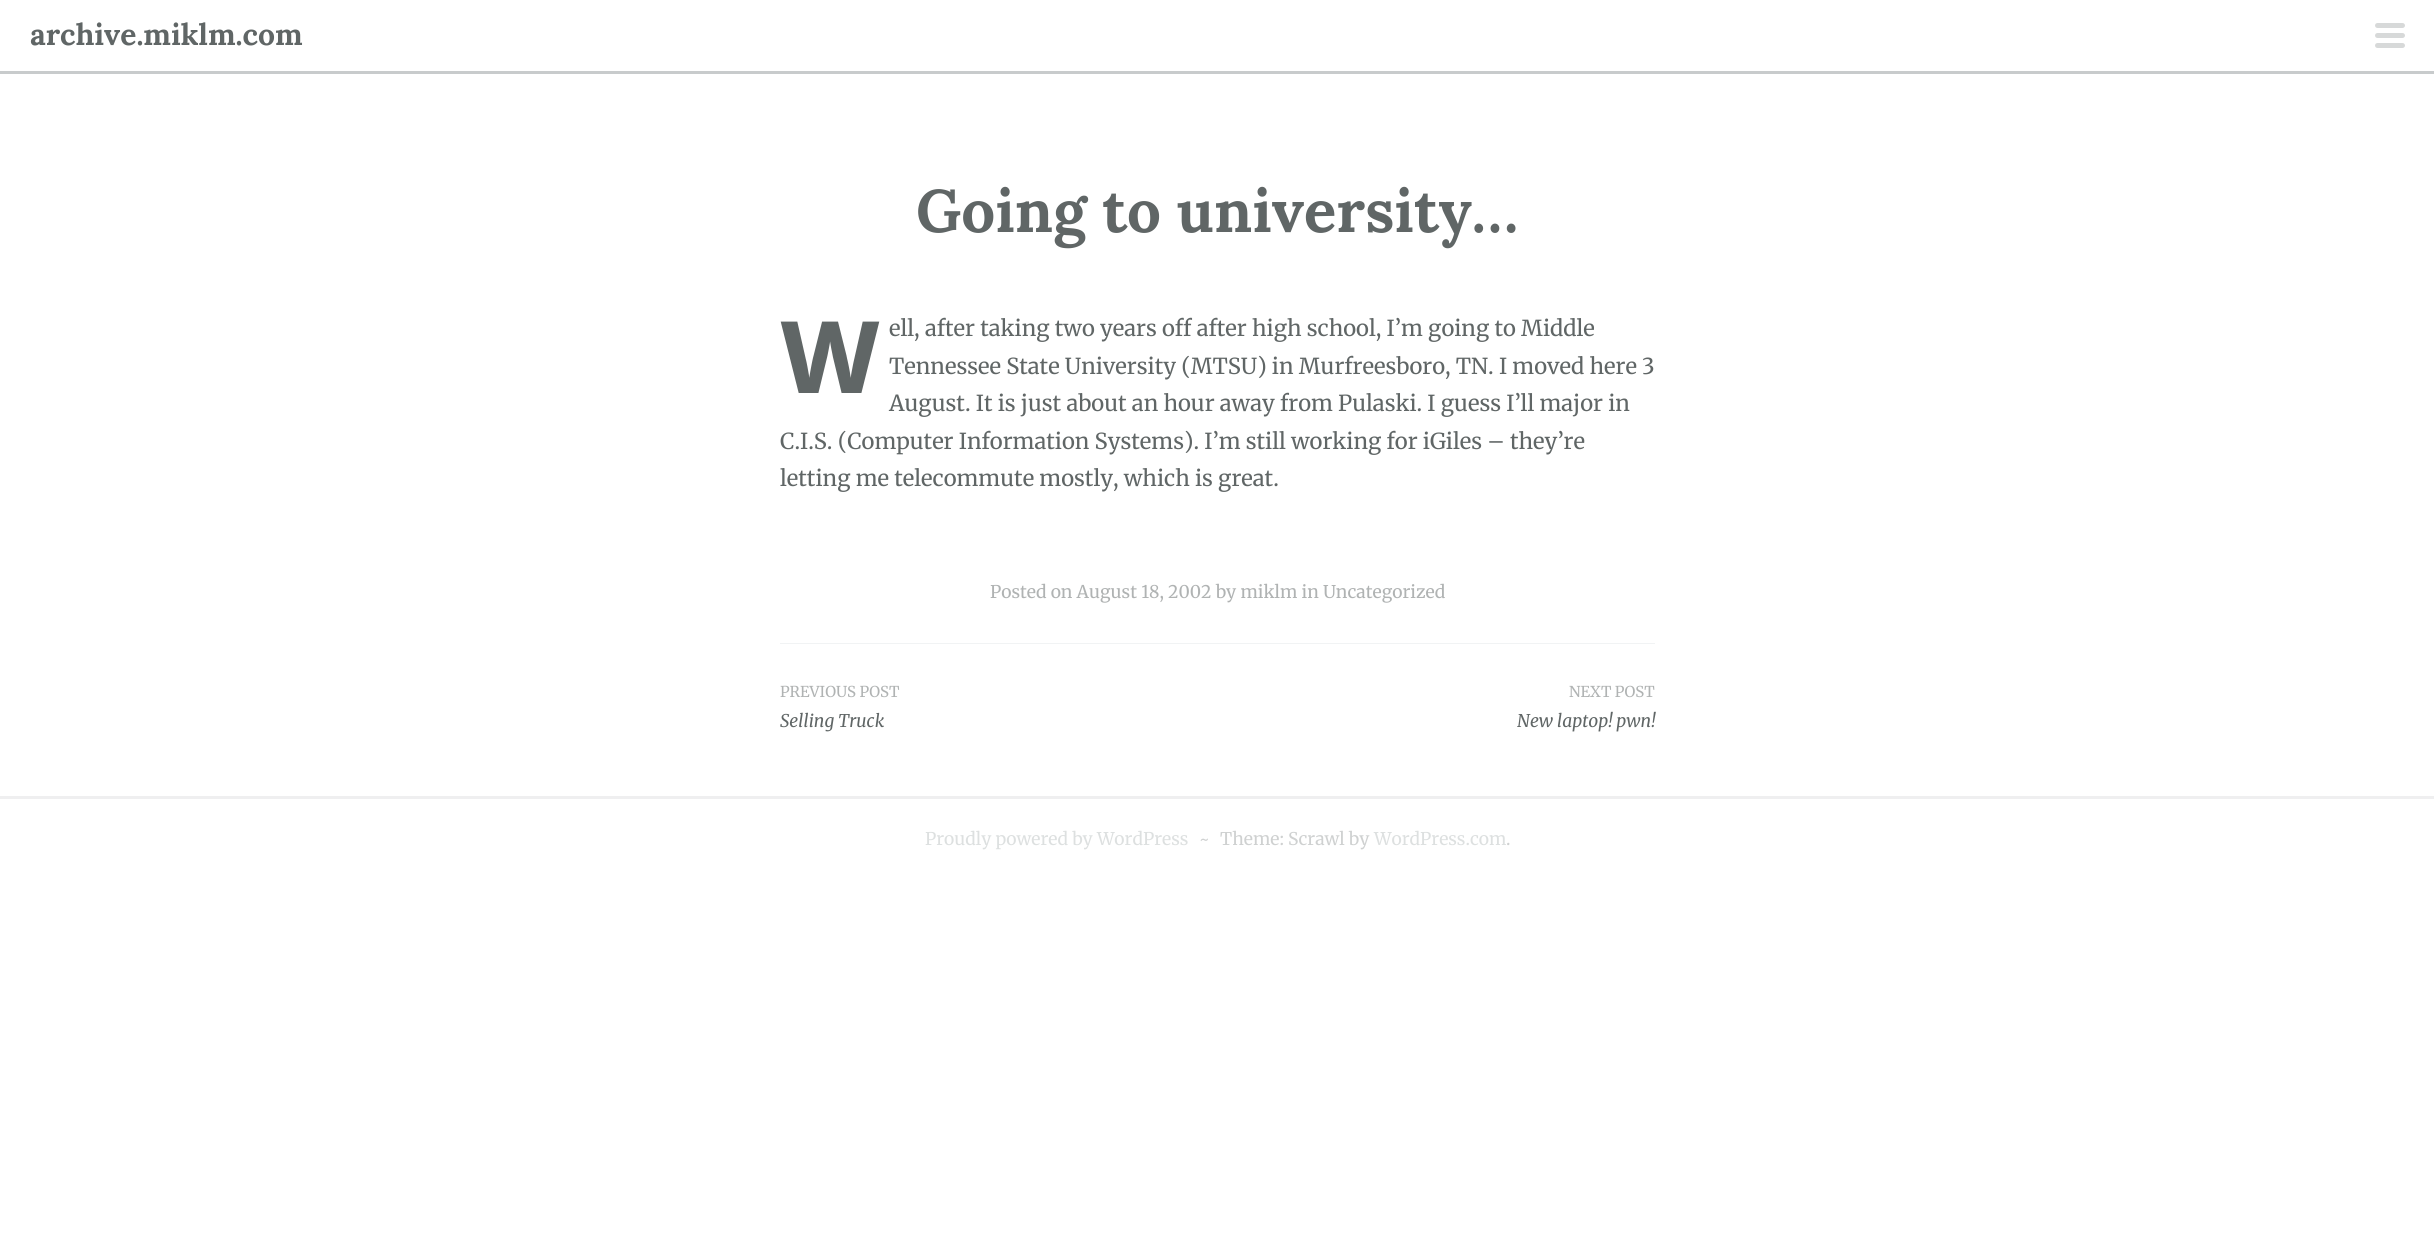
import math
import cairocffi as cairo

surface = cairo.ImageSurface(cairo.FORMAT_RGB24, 2434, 1238)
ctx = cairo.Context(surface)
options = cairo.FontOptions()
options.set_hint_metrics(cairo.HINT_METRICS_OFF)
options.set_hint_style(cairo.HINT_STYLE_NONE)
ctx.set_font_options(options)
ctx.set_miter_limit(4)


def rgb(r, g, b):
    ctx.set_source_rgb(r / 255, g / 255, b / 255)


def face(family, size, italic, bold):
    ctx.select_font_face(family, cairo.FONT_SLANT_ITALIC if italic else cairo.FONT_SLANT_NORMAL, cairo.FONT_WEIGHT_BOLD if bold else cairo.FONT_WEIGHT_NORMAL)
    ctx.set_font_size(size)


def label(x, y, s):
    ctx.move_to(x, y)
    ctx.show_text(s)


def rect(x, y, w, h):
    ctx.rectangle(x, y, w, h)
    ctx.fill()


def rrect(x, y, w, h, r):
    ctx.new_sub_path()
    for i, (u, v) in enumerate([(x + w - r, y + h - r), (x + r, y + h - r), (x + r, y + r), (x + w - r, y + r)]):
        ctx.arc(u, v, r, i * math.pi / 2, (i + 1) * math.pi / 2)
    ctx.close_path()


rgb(255, 255, 255)
ctx.paint()
rgb(200, 203, 204)
rect(0, 71, 2434, 3)
face('Lora', 30, 0, 1)
rgb(96, 102, 102)
label(30, 45, 'archive.miklm.com')
face('Lora', 60, 0, 1)
label(916, 232, 'Going to university…')
face('Noto Sans ExtraBold', 100, 0, 0)
label(780, 393, 'W')
face('Merriweather', 22, 0, 0)
label(889, 336, 'ell, after taking two years off after high school, I’m going to Middle')
label(889, 374, 'Tennessee State University (MTSU) in Murfreesboro, TN. I moved here 3')
label(889, 411, 'August. It is just about an hour away from Pulaski. I guess I’ll major in')
label(780, 449, 'C.I.S. (Computer Information Systems). I’m still working for iGiles – they’re')
label(780, 486, 'letting me telecommute mostly, which is great.')
face('Merriweather', 17.5, 0, 0)
rgb(176, 179, 179)
label(990, 598, 'Posted on August 18, 2002 by miklm in Uncategorized')
rgb(241, 243, 244)
rect(780, 643, 875, 1)
face('Merriweather', 15, 0, 0)
rgb(176, 179, 179)
label(780, 697, 'PREVIOUS POST')
face('Merriweather', 17.5, 1, 0)
rgb(96, 102, 102)
label(780, 727, 'Selling Truck')
face('Merriweather', 15, 0, 0)
rgb(176, 179, 179)
label(1569, 697, 'NEXT POST')
face('Merriweather', 17.5, 1, 0)
rgb(96, 102, 102)
label(1517, 727, 'New laptop! pwn!')
rgb(239, 239, 240)
rect(0, 796, 2434, 3)
face('Merriweather', 17.5, 0, 0)
rgb(221, 224, 224)
label(925, 845, 'Proudly powered by WordPress')
rgb(207, 209, 209)
label(1199, 845, '~')
label(1220, 845, 'Theme: Scrawl by')
rgb(221, 224, 224)
label(1374, 845, 'WordPress.com')
rgb(207, 209, 209)
label(1506, 845, '.')
rgb(215, 217, 217)
rrect(2375, 33, 30, 5, 2.5)
ctx.fill()
rrect(2375, 23, 30, 5, 2.5)
ctx.fill()
rrect(2375, 43, 30, 5, 2.5)
ctx.fill()
surface.write_to_png('render.png')
